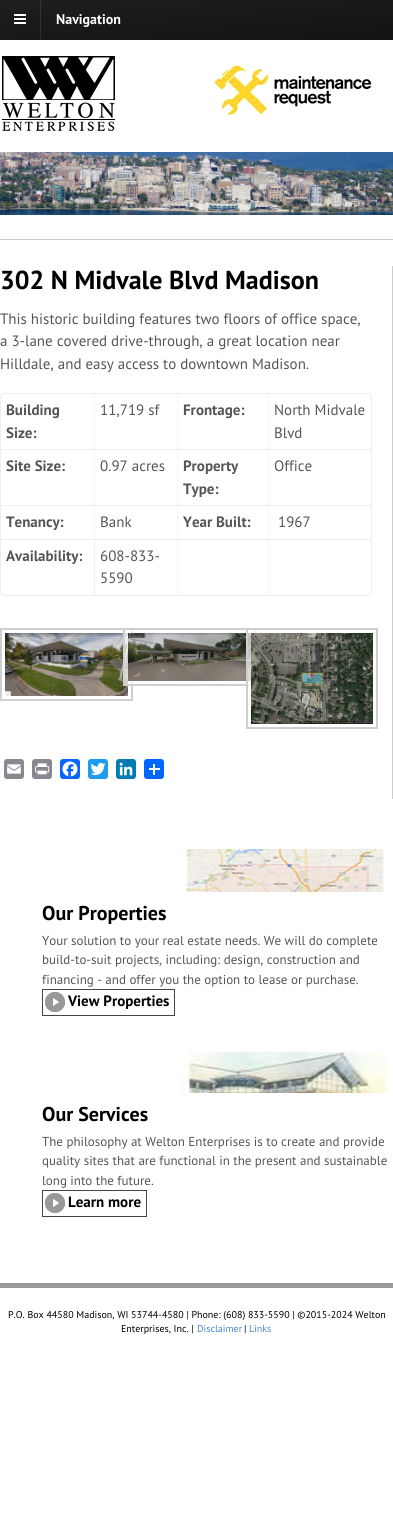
import math
import cairocffi as cairo

surface = cairo.ImageSurface(cairo.FORMAT_RGB24, 393, 1538)
ctx = cairo.Context(surface)
options = cairo.FontOptions()
options.set_hint_metrics(cairo.HINT_METRICS_OFF)
options.set_hint_style(cairo.HINT_STYLE_NONE)
ctx.set_font_options(options)
ctx.set_miter_limit(4)


def rgb(r, g, b):
    ctx.set_source_rgb(r / 255, g / 255, b / 255)


def face(family, size, italic, bold):
    ctx.select_font_face(family, cairo.FONT_SLANT_ITALIC if italic else cairo.FONT_SLANT_NORMAL, cairo.FONT_WEIGHT_BOLD if bold else cairo.FONT_WEIGHT_NORMAL)
    ctx.set_font_size(size)


def label(x, y, s):
    ctx.move_to(x, y)
    ctx.show_text(s)


def rect(x, y, w, h):
    ctx.rectangle(x, y, w, h)
    ctx.fill()


def rrect(x, y, w, h, r):
    ctx.new_sub_path()
    for i, (u, v) in enumerate([(x + w - r, y + h - r), (x + r, y + h - r), (x + r, y + r), (x + w - r, y + r)]):
        ctx.arc(u, v, r, i * math.pi / 2, (i + 1) * math.pi / 2)
    ctx.close_path()


def image(path, x, y, w, h):
    ctx.save()
    ctx.set_source_surface(cairo.ImageSurface.create_from_png(path), x, y)
    ctx.rectangle(x, y, w, h)
    ctx.fill()
    ctx.restore()


rgb(255, 255, 255)
ctx.paint()
gradient = cairo.LinearGradient(193, -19, 200, 58)
gradient.add_color_stop_rgba(0, 0.122, 0.122, 0.122, 1)
gradient.add_color_stop_rgba(1, 0.071, 0.071, 0.071, 1)
ctx.set_source(gradient)
rect(0, 0, 393, 39)
gradient = cairo.LinearGradient(193, -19, 200, 58)
gradient.add_color_stop_rgba(0, 0.11, 0.11, 0.11, 1)
gradient.add_color_stop_rgba(1, 0.063, 0.063, 0.063, 1)
ctx.set_source(gradient)
rect(41, 3, 1, 32)
gradient = cairo.LinearGradient(193, -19, 200, 58)
gradient.add_color_stop_rgba(0, 0.208, 0.208, 0.208, 1)
gradient.add_color_stop_rgba(1, 0.165, 0.165, 0.165, 1)
ctx.set_source(gradient)
rect(40, 0, 1, 39)
gradient = cairo.LinearGradient(193, 20, 200, 97)
gradient.add_color_stop_rgba(0, 0.098, 0.098, 0.098, 1)
gradient.add_color_stop_rgba(1, 0.055, 0.055, 0.055, 1)
ctx.set_source(gradient)
rect(0, 39, 393, 1)
image('image0.png', 14, 14, 12, 10)
face('PT Sans', 14, 0, 1)
rgb(255, 255, 255)
label(56, 24, 'Navigation')
image('image1.png', 2, 56, 113, 75)
image('image2.png', 213, 64, 159, 52)
image('image3.png', 0, 152, 393, 63)
rgb(204, 204, 204)
rect(0, 239, 393, 1)
rect(392, 266, 1, 533)
face('PT Sans', 26, 0, 1)
rgb(0, 0, 0)
label(0, 289, '302 N Midvale Blvd Madison')
face('PT Sans', 15, 0, 0)
rgb(85, 85, 85)
label(0, 324, 'This historic building features two floors of office space,')
label(0, 346, 'a 3-lane covered drive-through, a great location near')
label(0, 369, 'Hilldale, and easy access to downtown Madison.')
rrect(0.5, 393.5, 371, 202, 3.5)
rgb(238, 238, 238)
ctx.set_line_width(1)
ctx.stroke()
ctx.new_path()
ctx.move_to(94.5, 394)
ctx.line_to(94.5, 450)
ctx.set_dash([1, 1])
ctx.stroke()
rect(1, 449, 370, 1)
face('PT Sans', 15, 0, 1)
rgb(85, 85, 85)
label(6, 415, 'Building')
label(6, 438, 'Size:')
ctx.new_path()
ctx.move_to(177.5, 394)
ctx.line_to(177.5, 450)
rgb(238, 238, 238)
ctx.stroke()
face('PT Sans', 15, 0, 0)
rgb(85, 85, 85)
label(100, 415, '11,719 sf')
ctx.new_path()
ctx.move_to(268.5, 394)
ctx.line_to(268.5, 450)
rgb(238, 238, 238)
ctx.stroke()
face('PT Sans', 15, 0, 1)
rgb(85, 85, 85)
label(183, 415, 'Frontage:')
face('PT Sans', 15, 0, 0)
label(274, 415, 'North Midvale')
label(274, 438, 'Blvd')
ctx.new_path()
ctx.move_to(94.5, 450)
ctx.line_to(94.5, 506)
rgb(238, 238, 238)
ctx.stroke()
rect(1, 505, 370, 1)
face('PT Sans', 15, 0, 1)
rgb(85, 85, 85)
label(6, 471, 'Site Size:')
ctx.new_path()
ctx.move_to(177.5, 450)
ctx.line_to(177.5, 506)
rgb(238, 238, 238)
ctx.stroke()
face('PT Sans', 15, 0, 0)
rgb(85, 85, 85)
label(100, 471, '0.97 acres')
ctx.new_path()
ctx.move_to(268.5, 450)
ctx.line_to(268.5, 506)
rgb(238, 238, 238)
ctx.stroke()
face('PT Sans', 15, 0, 1)
rgb(85, 85, 85)
label(183, 471, 'Property')
label(183, 494, 'Type:')
face('PT Sans', 15, 0, 0)
label(274, 471, 'Office')
ctx.new_path()
ctx.move_to(94.5, 506)
ctx.line_to(94.5, 540)
rgb(238, 238, 238)
ctx.stroke()
rect(1, 539, 370, 1)
face('PT Sans', 15, 0, 1)
rgb(85, 85, 85)
label(6, 527, 'Tenancy:')
ctx.new_path()
ctx.move_to(177.5, 506)
ctx.line_to(177.5, 540)
rgb(238, 238, 238)
ctx.stroke()
face('PT Sans', 15, 0, 0)
rgb(85, 85, 85)
label(100, 527, 'Bank')
ctx.new_path()
ctx.move_to(268.5, 506)
ctx.line_to(268.5, 540)
rgb(238, 238, 238)
ctx.stroke()
face('PT Sans', 15, 0, 1)
rgb(85, 85, 85)
label(183, 527, 'Year Built:')
face('PT Sans', 15, 0, 0)
label(278, 527, '1967')
rgb(238, 238, 238)
rect(94, 540, 1, 55)
face('PT Sans', 15, 0, 1)
rgb(85, 85, 85)
label(6, 561, 'Availability:')
ctx.new_path()
ctx.move_to(177.5, 540)
ctx.line_to(177.5, 595)
rgb(238, 238, 238)
ctx.stroke()
face('PT Sans', 15, 0, 0)
rgb(85, 85, 85)
label(100, 561, '608-833-')
label(100, 583, '5590')
ctx.new_path()
ctx.move_to(268.5, 540)
ctx.line_to(268.5, 595)
rgb(238, 238, 238)
ctx.stroke()
ctx.rectangle(1, 629, 131, 71)
rgb(207, 207, 207)
ctx.set_line_width(2)
ctx.set_dash([])
ctx.stroke()
image('image4.png', 5, 633, 123, 63)
ctx.set_source_rgba(1, 1, 1, 0.7)
rect(125, 630, 8, 54)
ctx.rectangle(124, 629, 131, 56)
rgb(207, 207, 207)
ctx.stroke()
image('image5.png', 128, 633, 123, 48)
ctx.set_source_rgba(1, 1, 1, 0.7)
rect(248, 630, 8, 56)
ctx.rectangle(247, 629, 130, 99)
rgb(207, 207, 207)
ctx.stroke()
image('image6.png', 251, 633, 122, 91)
rgb(136, 137, 144)
rrect(4, 759, 20, 20, 3)
ctx.fill()
image('image7.png', 7, 764, 14, 10)
rrect(32, 759, 20, 20, 3)
ctx.fill()
image('image8.png', 35, 763, 15, 12)
rgb(8, 102, 255)
rrect(60, 759, 20, 20, 3)
ctx.fill()
image('image9.png', 62, 761, 16, 16)
rgb(29, 155, 240)
rrect(88, 759, 20, 20, 3)
ctx.fill()
image('image10.png', 90, 762, 16, 14)
rgb(0, 123, 181)
rrect(116, 759, 20, 20, 3)
ctx.fill()
image('image11.png', 119, 762, 14, 14)
rgb(1, 102, 255)
rrect(144, 759, 20, 20, 3)
ctx.fill()
rgb(255, 255, 255)
rect(153, 764, 2, 11)
rect(149, 768, 11, 2)
image('image12.png', 186, 849, 198, 43)
face('PT Sans', 20, 0, 1)
rgb(0, 0, 0)
label(42, 920, 'Our Properties')
face('PT Sans', 13, 0, 0)
rgb(85, 85, 85)
label(42, 945, 'Your solution to your real estate needs. We will do complete')
label(42, 964, 'build-to-suit projects, including: design, construction and')
label(42, 984, 'financing - and offer you the option to lease or purchase.')
image('image13.png', 45, 992, 20, 20)
ctx.rectangle(42.5, 989.5, 132, 26)
rgb(69, 69, 69)
ctx.set_line_width(1)
ctx.stroke()
face('PT Sans', 15, 0, 1)
rgb(0, 0, 0)
label(68, 1006, 'View Properties')
image('image14.png', 181, 1050, 208, 43)
face('PT Sans', 20, 0, 1)
label(42, 1121, 'Our Services')
face('PT Sans', 13, 0, 0)
rgb(85, 85, 85)
label(42, 1146, 'The philosophy at Welton Enterprises is to create and provide')
label(42, 1165, 'quality sites that are functional in the present and sustainable')
label(42, 1185, 'long into the future.')
image('image13.png', 45, 1193, 20, 20)
ctx.rectangle(42.5, 1190.5, 104, 26)
rgb(69, 69, 69)
ctx.stroke()
face('PT Sans', 15, 0, 1)
rgb(0, 0, 0)
label(68, 1207, 'Learn more')
rgb(153, 153, 153)
rect(0, 1283, 393, 5)
face('PT Sans', 10, 0, 0)
rgb(0, 0, 0)
label(8, 1318, 'P.O. Box 44580 Madison, WI 53744-4580 | Phone: (608) 833-5590 | ©2015-2024 Welton')
label(121, 1332, 'Enterprises, Inc. |')
rgb(66, 139, 202)
label(197, 1332, 'Disclaimer')
rgb(0, 0, 0)
label(244, 1332, '|')
rgb(66, 139, 202)
label(249, 1332, 'Links')
surface.write_to_png('render.png')
